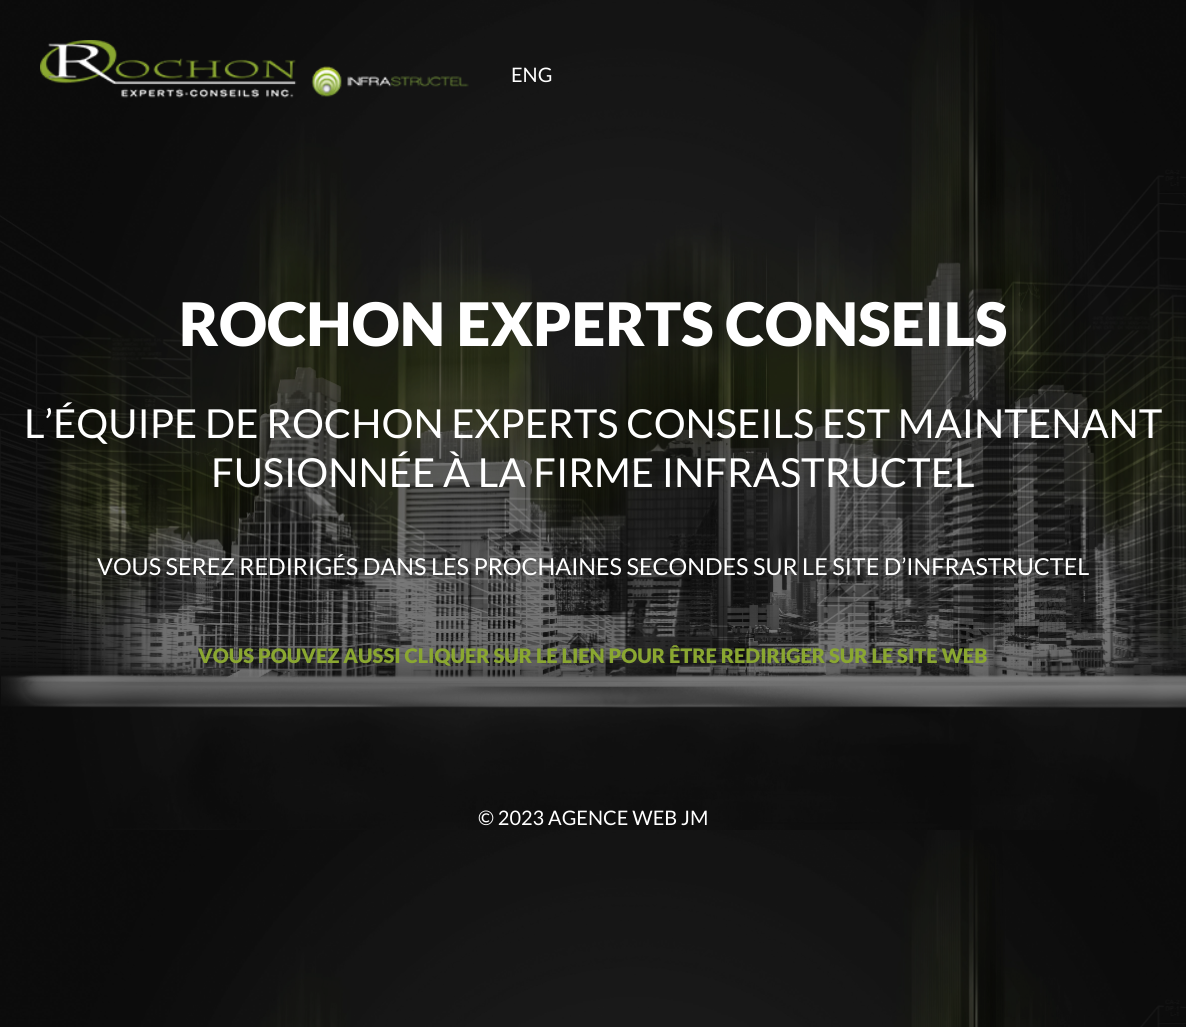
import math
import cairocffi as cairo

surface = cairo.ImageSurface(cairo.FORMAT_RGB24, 1186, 1027)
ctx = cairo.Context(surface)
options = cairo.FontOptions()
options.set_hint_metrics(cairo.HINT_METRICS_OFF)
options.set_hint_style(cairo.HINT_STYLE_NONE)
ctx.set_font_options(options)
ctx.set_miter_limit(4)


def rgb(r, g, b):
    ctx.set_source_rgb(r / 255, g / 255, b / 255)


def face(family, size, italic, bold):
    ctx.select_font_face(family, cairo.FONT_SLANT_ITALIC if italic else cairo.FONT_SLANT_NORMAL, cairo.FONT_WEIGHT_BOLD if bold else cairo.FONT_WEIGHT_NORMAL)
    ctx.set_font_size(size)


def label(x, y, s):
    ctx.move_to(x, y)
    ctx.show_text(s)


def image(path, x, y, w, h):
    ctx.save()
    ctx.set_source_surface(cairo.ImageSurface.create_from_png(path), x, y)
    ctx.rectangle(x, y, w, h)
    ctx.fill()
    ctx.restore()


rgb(255, 255, 255)
ctx.paint()
image('image0.png', 0, 0, 1186, 1027)
image('image1.png', 40, 40, 429, 58)
face('Lato', 20, 0, 0)
rgb(255, 255, 255)
label(511, 82, 'ENG')
face('Lato Black', 60, 0, 0)
label(179, 346, 'ROCHON EXPERTS CONSEILS')
face('Lato', 40, 0, 0)
label(24, 438, 'L’ÉQUIPE DE ROCHON EXPERTS CONSEILS EST MAINTENANT')
label(211, 487, 'FUSIONNÉE À LA FIRME INFRASTRUCTEL')
face('Lato', 23.4, 0, 0)
label(97, 575, 'VOUS SEREZ REDIRIGÉS DANS LES PROCHAINES SECONDES SUR LE SITE D’INFRASTRUCTEL')
face('Lato Black', 20, 0, 0)
rgb(138, 167, 49)
label(198, 663, 'VOUS POUVEZ AUSSI CLIQUER SUR LE LIEN POUR ÊTRE REDIRIGER SUR LE SITE WEB')
face('Lato', 20, 0, 0)
rgb(255, 255, 255)
label(478, 825, '© 2023 AGENCE WEB JM')
surface.write_to_png('render.png')
